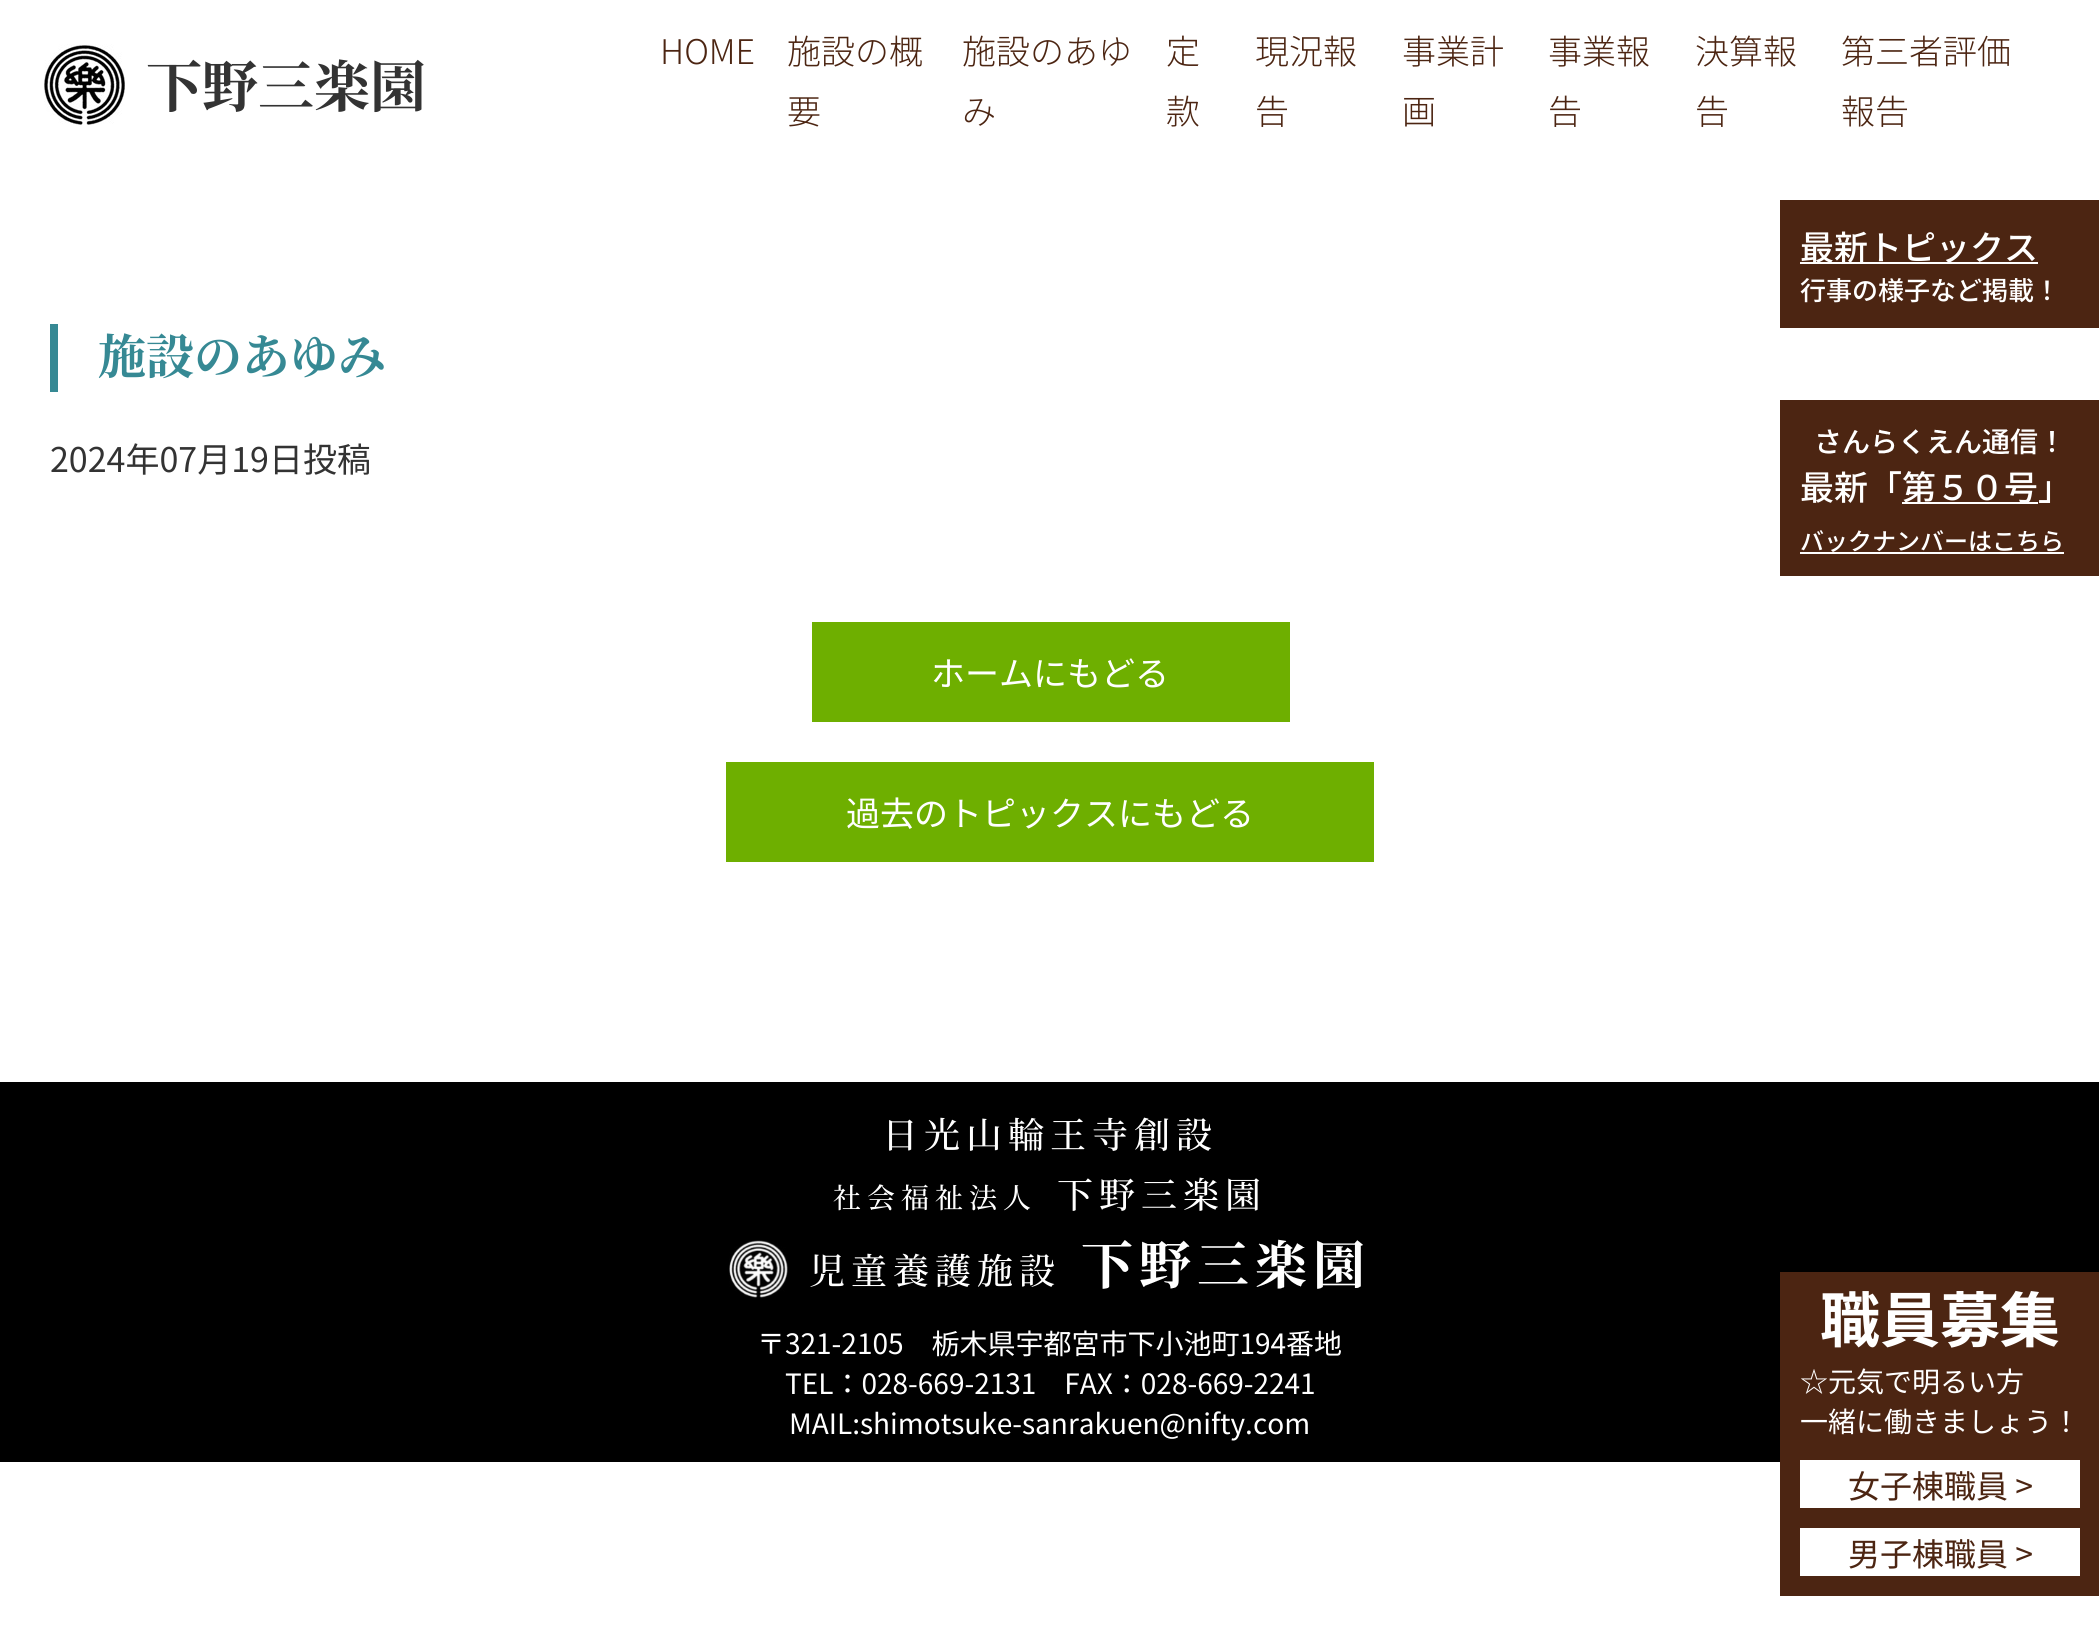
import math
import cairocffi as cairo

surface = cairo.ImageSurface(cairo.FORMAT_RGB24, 2099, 1635)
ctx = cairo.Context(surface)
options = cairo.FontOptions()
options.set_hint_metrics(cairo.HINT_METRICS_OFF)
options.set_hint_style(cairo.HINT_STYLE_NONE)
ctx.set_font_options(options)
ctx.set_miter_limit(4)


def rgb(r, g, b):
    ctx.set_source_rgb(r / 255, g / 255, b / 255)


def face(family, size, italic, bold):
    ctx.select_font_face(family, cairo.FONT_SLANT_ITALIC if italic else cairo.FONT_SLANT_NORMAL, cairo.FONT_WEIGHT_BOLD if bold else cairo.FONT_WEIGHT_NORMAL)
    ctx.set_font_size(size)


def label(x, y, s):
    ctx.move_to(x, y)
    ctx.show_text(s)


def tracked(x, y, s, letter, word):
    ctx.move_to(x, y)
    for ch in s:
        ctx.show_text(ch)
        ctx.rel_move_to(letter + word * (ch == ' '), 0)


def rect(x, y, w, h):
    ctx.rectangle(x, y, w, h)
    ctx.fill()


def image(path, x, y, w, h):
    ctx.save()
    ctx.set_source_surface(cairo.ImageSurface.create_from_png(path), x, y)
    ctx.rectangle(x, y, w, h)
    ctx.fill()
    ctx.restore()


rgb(255, 255, 255)
ctx.paint()
image('image0.png', 44, 44, 81, 81)
face('Noto Serif JP', 56, 0, 1)
rgb(51, 51, 51)
label(146, 107, '下野三楽園')
face('Noto Sans JP Light', 34, 0, 0)
rgb(76, 37, 18)
label(660, 64, 'HOME')
label(787, 64, '施設の概')
label(787, 124, '要')
label(962, 64, '施設のあゆ')
label(962, 124, 'み')
label(1166, 64, '定')
label(1166, 124, '款')
label(1255, 64, '現況報')
label(1255, 124, '告')
label(1402, 64, '事業計')
label(1402, 124, '画')
label(1548, 64, '事業報')
label(1548, 124, '告')
label(1695, 64, '決算報')
label(1695, 124, '告')
label(1841, 64, '第三者評価')
label(1841, 124, '報告')
rgb(54, 137, 148)
rect(50, 324, 8, 68)
face('Noto Serif JP', 48, 0, 1)
label(98, 374, '施設のあゆみ')
face('Noto Sans JP', 34, 0, 0)
rgb(51, 51, 51)
label(50, 472, '2024年07月19日投稿')
rgb(110, 175, 0)
rect(812, 622, 478, 100)
rgb(255, 255, 255)
label(931, 686, 'ホームにもどる')
rgb(110, 175, 0)
rect(726, 762, 648, 100)
rgb(255, 255, 255)
label(846, 826, '過去のトピックスにもどる')
rgb(76, 37, 18)
rect(1780, 200, 319, 128)
rgb(255, 255, 255)
rect(1800, 262, 238, 2)
face('Noto Sans JP Medium', 34, 0, 0)
label(1800, 260, '最新トピックス')
face('Noto Sans JP Medium', 26, 0, 0)
label(1800, 300, '行事の様子など掲載！')
rgb(76, 37, 18)
rect(1780, 400, 319, 176)
image('image1.png', 1818, 428, 237, 27)
face('Noto Sans JP Medium', 34, 0, 0)
rgb(255, 255, 255)
label(1800, 500, '最新「')
rect(1902, 502, 136, 2)
label(1902, 500, '第５０号」')
face('Noto Sans JP Medium', 24, 0, 0)
label(1800, 550, 'バックナンバーはこちら')
rect(1800, 552, 264, 2)
rgb(0, 0, 0)
rect(0, 1082, 2099, 380)
rgb(76, 37, 18)
rect(1780, 1272, 319, 324)
face('Noto Sans JP', 60, 0, 1)
rgb(255, 255, 255)
label(1820, 1342, '職員募集')
face('Noto Sans JP', 28, 0, 0)
label(1800, 1392, '☆元気で明るい方')
label(1800, 1432, '一緒に働きましょう！')
rect(1800, 1460, 280, 48)
face('Noto Sans JP', 32, 0, 0)
rgb(76, 37, 18)
label(1848, 1498, '女子棟職員 >')
rgb(255, 255, 255)
rect(1800, 1528, 280, 48)
rgb(76, 37, 18)
label(1848, 1566, '男子棟職員 >')
face('Noto Serif JP Medium', 36, 0, 0)
rgb(255, 255, 255)
tracked(882, 1148, '日光山輪王寺創設', 6, 0)
face('Noto Serif JP Medium', 28, 0, 0)
tracked(833, 1208, '社会福祉法人', 6, 0)
face('Noto Serif JP Medium', 36, 0, 0)
tracked(1057, 1208, '下野三楽園', 6, 0)
image('image2.png', 729, 1240, 59, 58)
tracked(809, 1284, '児童養護施設', 6, 0)
image('image3.png', 1082, 1239, 281, 50)
face('Noto Sans JP', 28, 0, 0)
label(757, 1354, '〒321-2105　栃木県宇都宮市下小池町194番地')
label(785, 1394, 'TEL：028-669-2131　FAX：028-669-2241')
label(789, 1434, 'MAIL:shimotsuke-sanrakuen@nifty.com')
surface.write_to_png('render.png')
